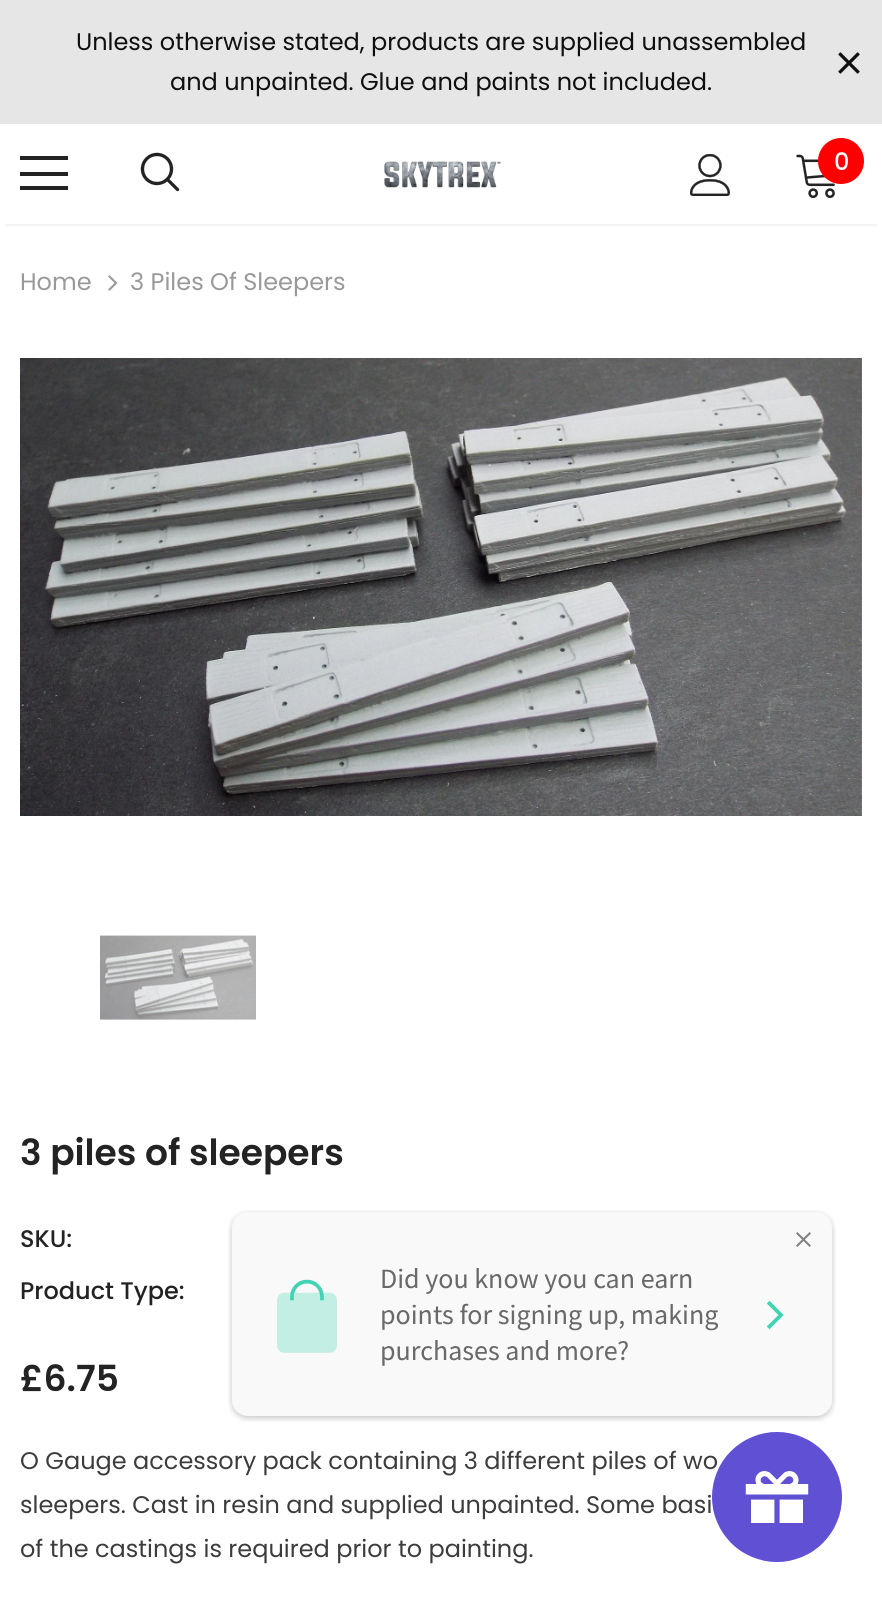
import math
import cairocffi as cairo

surface = cairo.ImageSurface(cairo.FORMAT_RGB24, 882, 1601)
ctx = cairo.Context(surface)
options = cairo.FontOptions()
options.set_hint_metrics(cairo.HINT_METRICS_OFF)
options.set_hint_style(cairo.HINT_STYLE_NONE)
ctx.set_font_options(options)
ctx.set_miter_limit(4)


def rgb(r, g, b):
    ctx.set_source_rgb(r / 255, g / 255, b / 255)


def face(family, size, italic, bold):
    ctx.select_font_face(family, cairo.FONT_SLANT_ITALIC if italic else cairo.FONT_SLANT_NORMAL, cairo.FONT_WEIGHT_BOLD if bold else cairo.FONT_WEIGHT_NORMAL)
    ctx.set_font_size(size)


def label(x, y, s):
    ctx.move_to(x, y)
    ctx.show_text(s)


def rect(x, y, w, h):
    ctx.rectangle(x, y, w, h)
    ctx.fill()


def rrect(x, y, w, h, r):
    ctx.new_sub_path()
    for i, (u, v) in enumerate([(x + w - r, y + h - r), (x + r, y + h - r), (x + r, y + r), (x + w - r, y + r)]):
        ctx.arc(u, v, r, i * math.pi / 2, (i + 1) * math.pi / 2)
    ctx.close_path()


def soft_shadow(x, y, w, h, r, blur, alpha):
    ctx.push_group_with_content(cairo.CONTENT_ALPHA)
    ctx.set_operator(cairo.OPERATOR_SOURCE)
    for i in range(15, -16, -2):
        e = blur * i / 6
        if min(w, h) + 2 * e > 0:
            ctx.set_source_rgba(0, 0, 0, alpha * math.erfc((i - 1) / 8.5) / 2)
            rrect(x - e, y - e, w + 2 * e, h + 2 * e, max(0, min(r + e + blur * .6, min(w, h) / 2 + e)))
            ctx.fill()
    ctx.mask(ctx.pop_group())


def image(path, x, y, w, h):
    ctx.save()
    ctx.set_source_surface(cairo.ImageSurface.create_from_png(path), x, y)
    ctx.rectangle(x, y, w, h)
    ctx.fill()
    ctx.restore()


rgb(255, 255, 255)
ctx.paint()
rgb(230, 230, 230)
rect(0, 0, 882, 124)
face('Poppins', 24, 0, 0)
rgb(15, 15, 15)
label(76, 50, 'Unless otherwise stated, products are supplied unassembled')
label(170, 90, 'and unpainted. Glue and paints not included.')
image('image0.png', 838, 52, 22, 22)
ctx.save()
ctx.rectangle(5, 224, 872, 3)
ctx.clip()
rgb(0, 0, 0)
soft_shadow(6, 136, 870, 88, 0, 3, 0.12)
ctx.restore()
rgb(35, 35, 35)
rect(20, 156, 48, 4)
rect(20, 172, 48, 4)
rect(20, 186, 48, 4)
image('image1.png', 140, 152, 40, 40)
image('image2.png', 384, 161, 117, 27)
image('image3.png', 690, 154, 41, 42)
image('image4.png', 796, 154, 39, 44)
rgb(255, 0, 0)
ctx.arc(841, 161, 23, 0, 2 * math.pi)
ctx.fill()
face('Poppins Medium', 24, 0, 0)
rgb(255, 255, 255)
label(834, 170, '0')
face('Poppins', 24, 0, 0)
rgb(153, 153, 153)
label(20, 290, 'Home')
image('image5.png', 108, 275, 10, 16)
label(130, 290, '3 Piles Of Sleepers')
image('image6.png', 20, 358, 842, 458)
image('image7.png', 100, 935, 156, 85)
face('Poppins SemiBold', 36, 0, 0)
rgb(35, 35, 35)
label(20, 1165, '3 piles of sleepers')
face('Poppins Medium', 24, 0, 0)
label(20, 1247, 'SKU:')
label(20, 1299, 'Product Type:')
face('Poppins SemiBold', 36, 0, 0)
label(20, 1391, '£6.75')
face('Poppins', 24, 0, 0)
rgb(60, 60, 60)
label(20, 1469, 'O Gauge accessory pack containing 3 different piles of wo')
label(20, 1513, 'sleepers. Cast in resin and supplied unpainted. Some basi')
label(20, 1557, 'of the castings is required prior to painting.')
image('image8.png', 228, 1210, 608, 212)
image('image9.png', 712, 1432, 130, 130)
surface.write_to_png('render.png')
